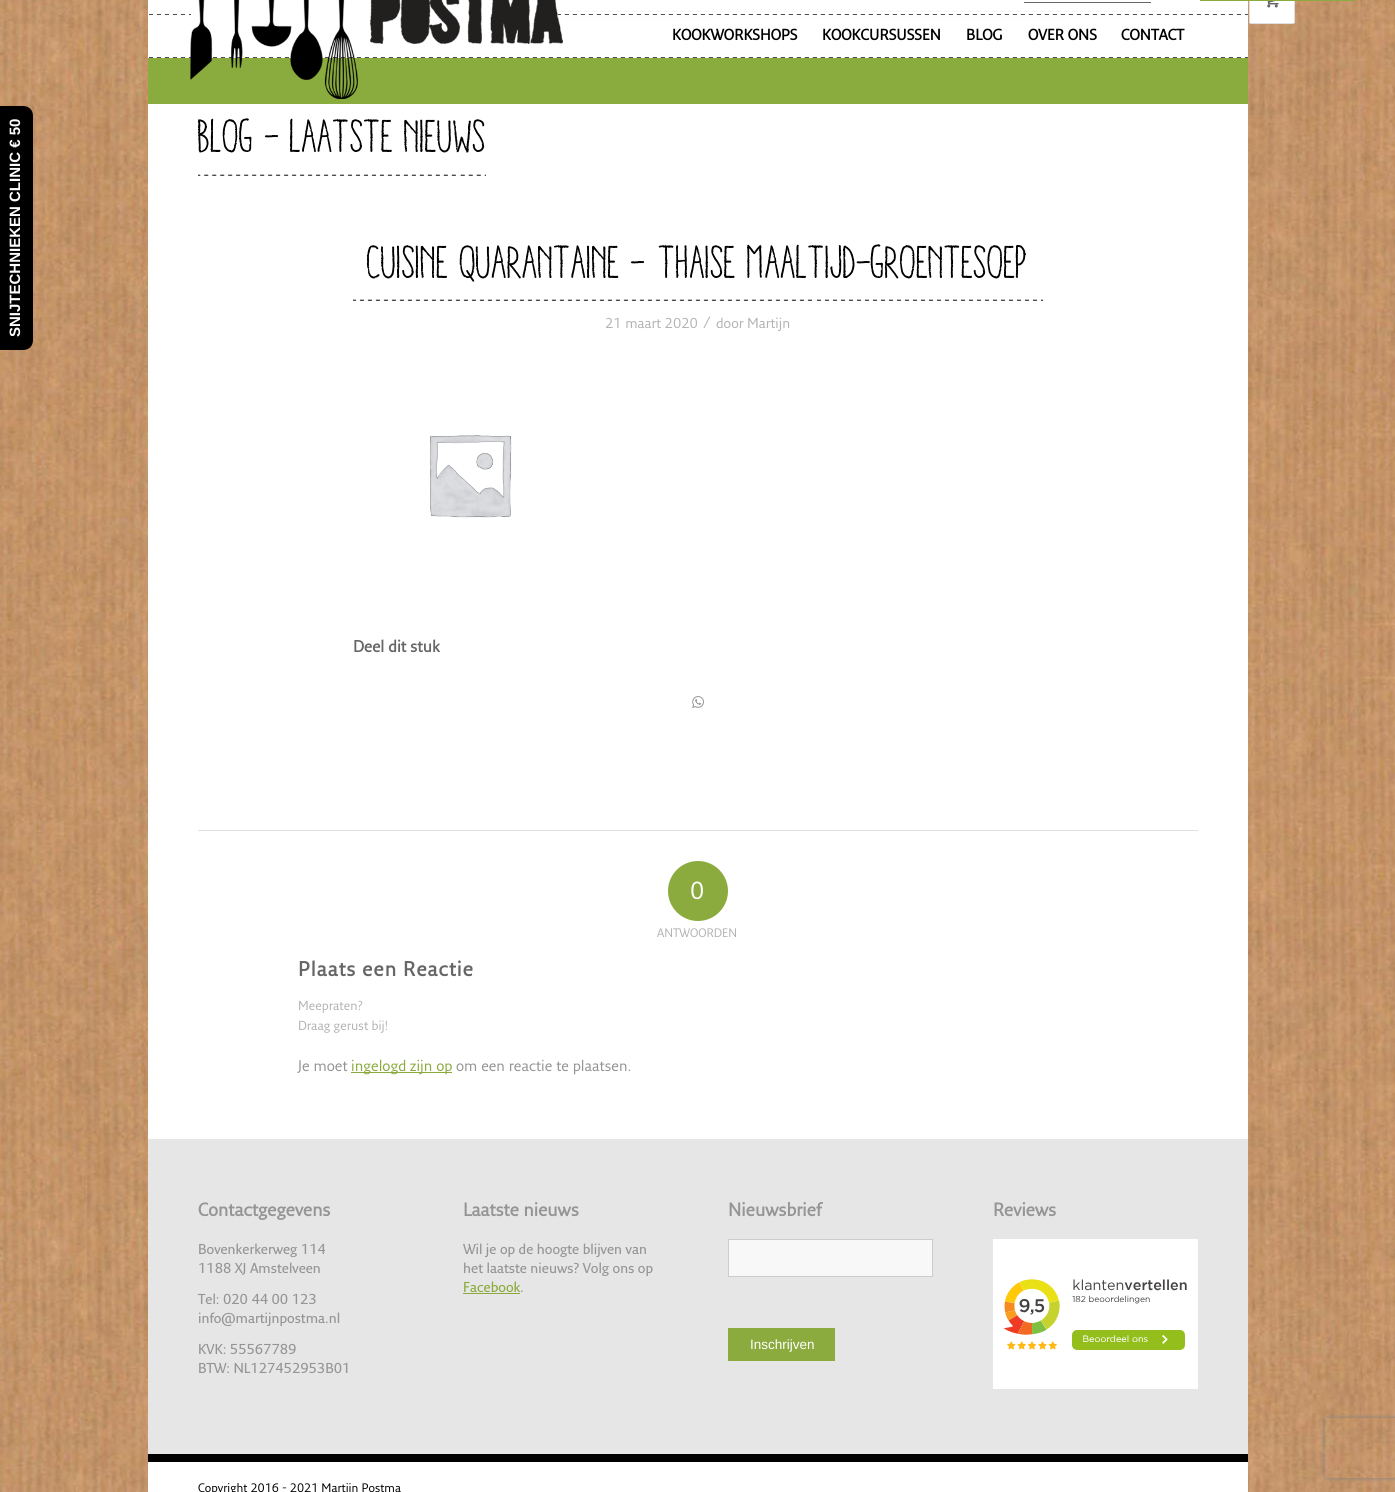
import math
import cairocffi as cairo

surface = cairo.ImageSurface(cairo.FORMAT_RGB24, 1395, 1492)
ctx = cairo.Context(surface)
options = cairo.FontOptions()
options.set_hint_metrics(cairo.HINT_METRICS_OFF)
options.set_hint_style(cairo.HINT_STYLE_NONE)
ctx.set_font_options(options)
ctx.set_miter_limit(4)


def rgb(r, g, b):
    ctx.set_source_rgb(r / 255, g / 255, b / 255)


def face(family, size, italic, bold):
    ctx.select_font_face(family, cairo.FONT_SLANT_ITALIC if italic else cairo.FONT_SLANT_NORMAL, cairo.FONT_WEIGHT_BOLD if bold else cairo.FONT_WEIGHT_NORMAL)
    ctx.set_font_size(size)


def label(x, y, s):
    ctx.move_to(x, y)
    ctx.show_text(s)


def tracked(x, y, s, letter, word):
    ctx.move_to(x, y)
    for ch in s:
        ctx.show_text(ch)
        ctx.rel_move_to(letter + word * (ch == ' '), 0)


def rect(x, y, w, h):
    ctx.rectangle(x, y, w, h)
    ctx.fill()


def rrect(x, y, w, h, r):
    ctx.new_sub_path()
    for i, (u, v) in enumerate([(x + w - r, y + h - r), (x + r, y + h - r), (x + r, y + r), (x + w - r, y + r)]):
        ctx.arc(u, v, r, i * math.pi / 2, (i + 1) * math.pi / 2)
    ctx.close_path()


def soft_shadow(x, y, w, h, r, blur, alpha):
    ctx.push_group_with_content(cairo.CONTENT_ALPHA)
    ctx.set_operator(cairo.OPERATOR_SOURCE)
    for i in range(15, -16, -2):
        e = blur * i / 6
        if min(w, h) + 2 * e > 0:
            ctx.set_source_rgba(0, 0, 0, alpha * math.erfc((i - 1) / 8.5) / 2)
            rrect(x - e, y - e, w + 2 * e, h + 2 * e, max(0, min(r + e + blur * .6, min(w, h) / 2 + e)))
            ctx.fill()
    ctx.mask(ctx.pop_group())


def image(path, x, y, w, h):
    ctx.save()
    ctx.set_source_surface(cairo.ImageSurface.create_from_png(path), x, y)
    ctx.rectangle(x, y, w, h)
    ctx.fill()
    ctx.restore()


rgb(255, 255, 255)
ctx.paint()
image('image0.png', 0, 0, 1395, 1492)
rgb(0, 0, 0)
ctx.new_path()
ctx.move_to(-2, 350)
ctx.line_to(-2, 106)
ctx.line_to(23, 106)
ctx.curve_to(29, 106, 33, 110, 33, 116)
ctx.line_to(33, 340)
ctx.curve_to(33, 346, 29, 350, 23, 350)
ctx.close_path()
ctx.fill()
face('Liberation Sans', 15, 0, 1)
rgb(255, 255, 255)
ctx.save()
ctx.translate(20, 337)
ctx.rotate(-90 * math.pi / 180)
label(0, 0, 'SNIJTECHNIEKEN CLINIC € 50')
ctx.restore()
rect(148, 0, 1100, 14)
image('image1.png', 148, 14, 1100, 90)
rgb(223, 223, 223)
rrect(1249, -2, 46, 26, 2)
ctx.fill()
rgb(139, 171, 63)
rect(1200, 0, 155, 1)
rgb(102, 102, 102)
rect(1024, 2, 127, 1)
rgb(255, 255, 255)
rect(1250, 1, 44, 22)
image('image2.png', 1267, 1, 12, 7)
image('image3.png', 190, 0, 373, 100)
face('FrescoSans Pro', 15, 0, 1)
rgb(0, 0, 0)
label(672, 40, 'KOOKWORKSHOPS')
label(822, 40, 'KOOKCURSUSSEN')
label(966, 40, 'BLOG')
label(1028, 40, 'OVER ONS')
label(1121, 40, 'CONTACT')
rgb(255, 255, 255)
rect(148, 104, 1100, 1035)
face('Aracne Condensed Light', 45, 0, 1)
rgb(0, 0, 0)
label(198, 152, 'BLOG - LAATSTE NIEUWS')
image('image4.png', 198, 174, 288, 2)
rgb(223, 223, 223)
rect(198, 830, 1000, 1)
image('image5.png', 353, 299, 690, 2)
rgb(0, 0, 0)
label(367, 278, 'CUISINE QUARANTAINE – THAISE MAALTIJD-GROENTESOEP')
face('FrescoSans Pro', 14, 0, 0)
rgb(179, 179, 179)
label(605, 328, '21 maart 2020')
face('FrescoSans Pro', 16, 0, 0)
label(703, 328, '/')
face('FrescoSans Pro', 14, 0, 0)
label(716, 328, 'door Martijn')
image('image6.png', 429, 435, 83, 83)
face('FrescoSans Pro', 16, 0, 1)
rgb(102, 102, 102)
label(353, 652, 'Deel dit stuk')
image('image7.png', 692, 696, 12, 12)
rgb(139, 171, 63)
ctx.arc(698, 891, 30, 0, 2 * math.pi)
ctx.fill()
face('FrescoSans Pro', 24, 0, 0)
rgb(255, 255, 255)
label(690, 899, '0')
face('FrescoSans Pro', 12, 0, 0)
rgb(179, 179, 179)
label(657, 937, 'ANTWOORDEN')
face('FrescoSans Pro', 20, 0, 1)
rgb(102, 102, 102)
tracked(298, 976, 'Plaats een Reactie', 1, 0)
face('FrescoSans Pro', 12.75, 0, 0)
rgb(179, 179, 179)
label(298, 1010, 'Meepraten?')
label(298, 1030, 'Draag gerust bij!')
face('FrescoSans Pro', 15, 0, 0)
rgb(149, 149, 149)
label(298, 1071, 'Je moet')
rgb(139, 171, 63)
rect(351, 1072, 101, 1)
label(351, 1071, 'ingelogd zijn op')
rgb(149, 149, 149)
label(456, 1071, 'om een reactie te plaatsen.')
rgb(230, 230, 230)
rect(148, 1139, 1100, 315)
face('FrescoSans Pro', 18, 0, 1)
rgb(149, 149, 149)
label(198, 1216, 'Contactgegevens')
face('FrescoSans Pro SemiBold', 14, 0, 0)
label(198, 1254, 'Bovenkerkerweg 114')
label(198, 1273, '1188 XJ Amstelveen')
label(198, 1304, 'Tel: 020 44 00 123')
label(198, 1323, 'info@martijnpostma.nl')
label(198, 1354, 'KVK: 55567789')
label(198, 1373, 'BTW: NL127452953B01')
face('FrescoSans Pro', 18, 0, 1)
label(463, 1216, 'Laatste nieuws')
face('FrescoSans Pro SemiBold', 14, 0, 0)
label(463, 1254, 'Wil je op de hoogte blijven van')
label(463, 1273, 'het laatste nieuws? Volg ons op')
rgb(139, 171, 63)
label(463, 1292, 'Facebook')
rect(463, 1293, 57, 1)
rgb(149, 149, 149)
label(520, 1292, '.')
face('FrescoSans Pro', 18, 0, 1)
label(728, 1216, 'Nieuwsbrief')
rgb(248, 248, 248)
ctx.rectangle(728.5, 1239.5, 204, 37)
ctx.fill_preserve()
rgb(204, 204, 204)
ctx.set_line_width(1)
ctx.stroke()
rgb(139, 171, 63)
rect(728, 1328, 107, 33)
face('Liberation Sans', 13.5, 0, 0)
rgb(255, 255, 255)
label(750, 1349, 'Inschrijven')
face('FrescoSans Pro', 18, 0, 1)
rgb(149, 149, 149)
label(993, 1216, 'Reviews')
image('image8.png', 993, 1239, 205, 150)
rgb(255, 255, 255)
rect(148, 1462, 1100, 30)
rgb(0, 0, 0)
rect(148, 1454, 1100, 8)
face('FrescoSans Pro', 12, 0, 0)
label(198, 1492, 'Copyright 2016 - 2021 Martijn Postma')
ctx.save()
ctx.set_fill_rule(cairo.FILL_RULE_EVEN_ODD)
ctx.new_path()
ctx.move_to(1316, 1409)
ctx.line_to(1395, 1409)
ctx.line_to(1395, 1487)
ctx.line_to(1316, 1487)
ctx.close_path()
ctx.move_to(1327, 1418)
ctx.line_to(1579, 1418)
ctx.curve_to(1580, 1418, 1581, 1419, 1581, 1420)
ctx.line_to(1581, 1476)
ctx.curve_to(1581, 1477, 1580, 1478, 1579, 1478)
ctx.line_to(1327, 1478)
ctx.curve_to(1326, 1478, 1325, 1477, 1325, 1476)
ctx.line_to(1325, 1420)
ctx.curve_to(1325, 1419, 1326, 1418, 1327, 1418)
ctx.close_path()
ctx.clip()
rgb(128, 128, 128)
soft_shadow(1325, 1418, 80, 60, 2, 2.5, 1)
ctx.restore()
surface.write_to_png('render.png')
